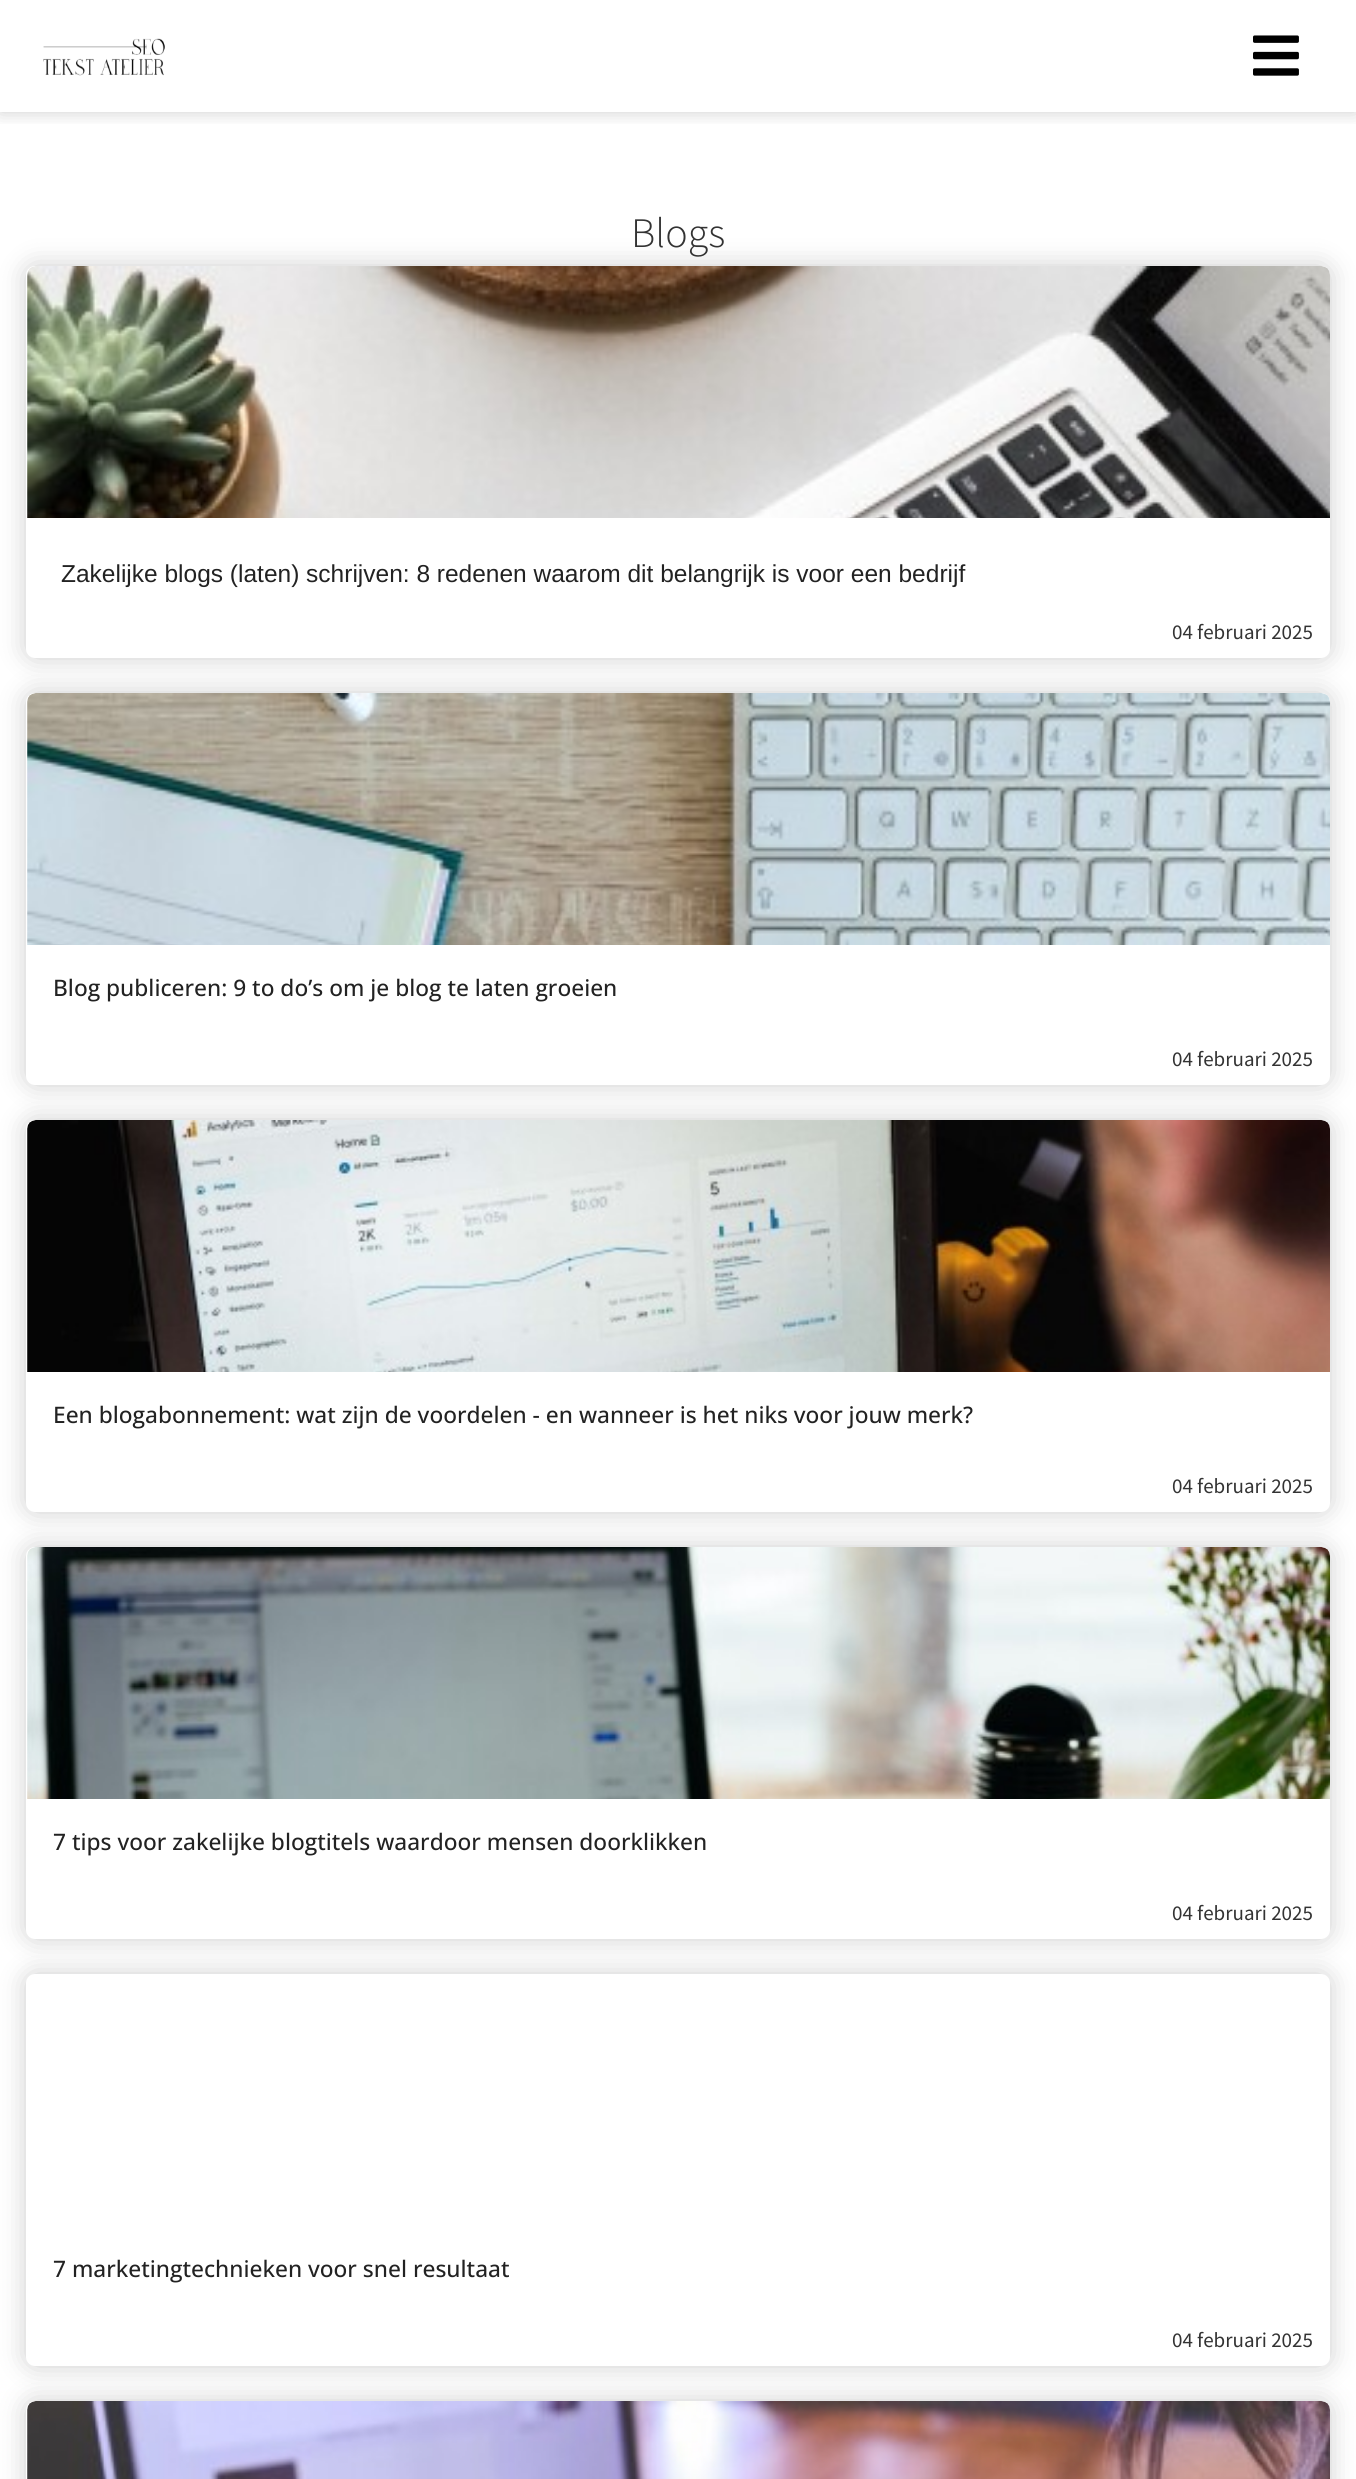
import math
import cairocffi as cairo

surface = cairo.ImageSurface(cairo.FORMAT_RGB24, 1356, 2479)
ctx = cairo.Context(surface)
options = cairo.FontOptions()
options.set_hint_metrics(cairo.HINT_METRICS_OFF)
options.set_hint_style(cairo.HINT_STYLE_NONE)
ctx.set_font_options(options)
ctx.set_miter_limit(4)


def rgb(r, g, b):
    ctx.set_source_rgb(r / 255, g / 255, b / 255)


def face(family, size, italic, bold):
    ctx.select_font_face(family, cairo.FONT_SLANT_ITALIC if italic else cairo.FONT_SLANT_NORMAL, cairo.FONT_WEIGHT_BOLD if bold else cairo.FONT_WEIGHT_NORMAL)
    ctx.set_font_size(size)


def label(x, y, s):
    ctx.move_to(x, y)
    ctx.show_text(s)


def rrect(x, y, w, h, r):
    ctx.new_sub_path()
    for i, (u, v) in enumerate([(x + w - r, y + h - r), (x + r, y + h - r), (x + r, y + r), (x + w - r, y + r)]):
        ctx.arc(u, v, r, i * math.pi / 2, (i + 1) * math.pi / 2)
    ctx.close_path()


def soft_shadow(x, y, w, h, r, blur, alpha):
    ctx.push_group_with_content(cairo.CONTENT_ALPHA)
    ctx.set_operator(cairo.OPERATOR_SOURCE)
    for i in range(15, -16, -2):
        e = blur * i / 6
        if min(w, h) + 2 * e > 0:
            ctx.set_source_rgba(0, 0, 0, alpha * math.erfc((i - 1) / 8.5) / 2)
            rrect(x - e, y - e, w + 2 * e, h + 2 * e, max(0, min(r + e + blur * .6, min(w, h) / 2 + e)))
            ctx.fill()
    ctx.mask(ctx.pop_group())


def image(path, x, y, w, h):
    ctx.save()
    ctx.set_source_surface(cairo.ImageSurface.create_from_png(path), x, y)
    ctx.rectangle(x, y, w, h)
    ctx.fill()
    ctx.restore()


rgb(255, 255, 255)
ctx.paint()
ctx.save()
ctx.rectangle(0, 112, 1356, 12)
ctx.clip()
rgb(0, 0, 0)
soft_shadow(0, 0, 1356, 112, 0, 9, 0.2)
ctx.restore()
image('image0.png', 43, 38, 122, 38)
image('image1.png', 1253, 35, 46, 41)
face('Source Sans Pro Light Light', 42, 0, 0)
rgb(51, 51, 51)
label(631, 247, 'Blogs')
rgb(0, 0, 0)
soft_shadow(26, 266, 1304, 392, 9, 13, 0.2)
rgb(255, 255, 255)
rrect(26, 266, 1304, 392, 9)
ctx.fill()
image('image2.png', 27, 266, 1303, 252)
face('Liberation Sans', 24.5, 0, 0)
rgb(34, 34, 34)
label(61, 582, 'Zakelijke blogs (laten) schrijven: 8 redenen waarom dit belangrijk is voor een bedrijf')
face('Source Sans Pro', 21, 0, 0)
rgb(51, 51, 51)
label(1172, 639, '04 februari 2025')
rgb(0, 0, 0)
soft_shadow(26, 693, 1304, 392, 9, 13, 0.2)
rgb(255, 255, 255)
rrect(26, 693, 1304, 392, 9)
ctx.fill()
image('image3.png', 27, 693, 1303, 252)
face('Open Sans Medium', 22.75, 0, 0)
rgb(34, 34, 34)
label(53, 996, 'Blog publiceren: 9 to do’s om je blog te laten groeien')
face('Source Sans Pro', 21, 0, 0)
rgb(51, 51, 51)
label(1172, 1066, '04 februari 2025')
rgb(0, 0, 0)
soft_shadow(26, 1120, 1304, 392, 9, 13, 0.2)
rgb(255, 255, 255)
rrect(26, 1120, 1304, 392, 9)
ctx.fill()
image('image4.png', 27, 1120, 1303, 252)
face('Open Sans Medium', 22.75, 0, 0)
rgb(34, 34, 34)
label(53, 1423, 'Een blogabonnement: wat zijn de voordelen - en wanneer is het niks voor jouw merk?')
face('Source Sans Pro', 21, 0, 0)
rgb(51, 51, 51)
label(1172, 1493, '04 februari 2025')
rgb(0, 0, 0)
soft_shadow(26, 1547, 1304, 392, 9, 13, 0.2)
rgb(255, 255, 255)
rrect(26, 1547, 1304, 392, 9)
ctx.fill()
image('image5.png', 27, 1547, 1303, 252)
face('Open Sans Medium', 22.75, 0, 0)
rgb(34, 34, 34)
label(53, 1850, '7 tips voor zakelijke blogtitels waardoor mensen doorklikken')
face('Source Sans Pro', 21, 0, 0)
rgb(51, 51, 51)
label(1172, 1920, '04 februari 2025')
rgb(0, 0, 0)
soft_shadow(26, 1974, 1304, 392, 9, 13, 0.2)
rgb(255, 255, 255)
rrect(26, 1974, 1304, 392, 9)
ctx.fill()
face('Open Sans Medium', 22.75, 0, 0)
rgb(34, 34, 34)
label(53, 2277, '7 marketingtechnieken voor snel resultaat')
face('Source Sans Pro', 21, 0, 0)
rgb(51, 51, 51)
label(1172, 2347, '04 februari 2025')
rgb(0, 0, 0)
soft_shadow(26, 2401, 1304, 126, 9, 13, 0.2)
rgb(255, 255, 255)
rrect(26, 2401, 1304, 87, 9)
ctx.fill()
image('image6.png', 27, 2401, 1303, 78)
surface.write_to_png('render.png')
